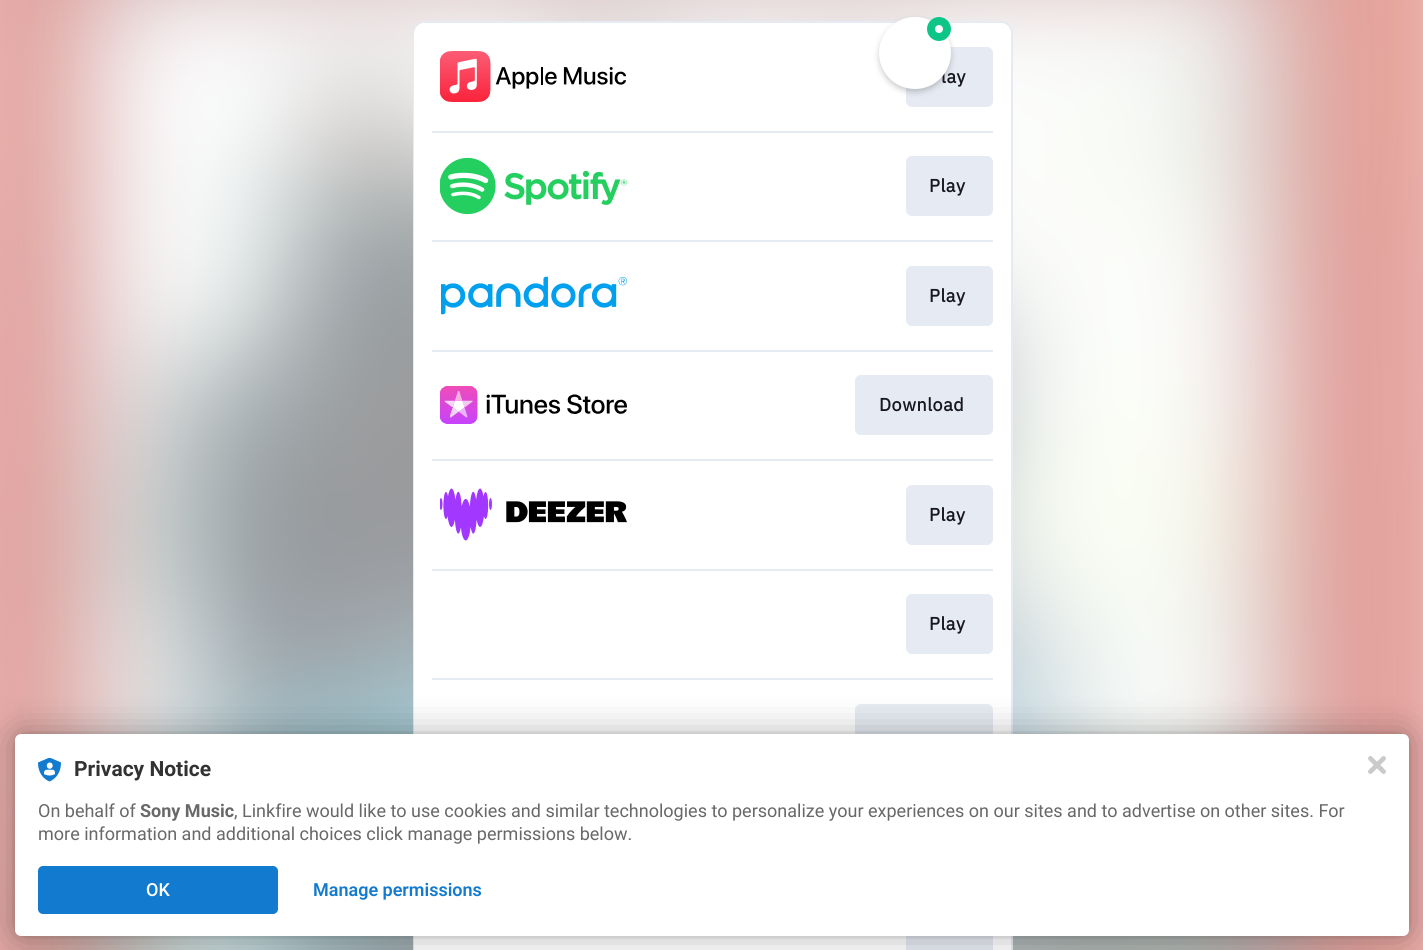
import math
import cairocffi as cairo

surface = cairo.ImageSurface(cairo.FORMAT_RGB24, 1423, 950)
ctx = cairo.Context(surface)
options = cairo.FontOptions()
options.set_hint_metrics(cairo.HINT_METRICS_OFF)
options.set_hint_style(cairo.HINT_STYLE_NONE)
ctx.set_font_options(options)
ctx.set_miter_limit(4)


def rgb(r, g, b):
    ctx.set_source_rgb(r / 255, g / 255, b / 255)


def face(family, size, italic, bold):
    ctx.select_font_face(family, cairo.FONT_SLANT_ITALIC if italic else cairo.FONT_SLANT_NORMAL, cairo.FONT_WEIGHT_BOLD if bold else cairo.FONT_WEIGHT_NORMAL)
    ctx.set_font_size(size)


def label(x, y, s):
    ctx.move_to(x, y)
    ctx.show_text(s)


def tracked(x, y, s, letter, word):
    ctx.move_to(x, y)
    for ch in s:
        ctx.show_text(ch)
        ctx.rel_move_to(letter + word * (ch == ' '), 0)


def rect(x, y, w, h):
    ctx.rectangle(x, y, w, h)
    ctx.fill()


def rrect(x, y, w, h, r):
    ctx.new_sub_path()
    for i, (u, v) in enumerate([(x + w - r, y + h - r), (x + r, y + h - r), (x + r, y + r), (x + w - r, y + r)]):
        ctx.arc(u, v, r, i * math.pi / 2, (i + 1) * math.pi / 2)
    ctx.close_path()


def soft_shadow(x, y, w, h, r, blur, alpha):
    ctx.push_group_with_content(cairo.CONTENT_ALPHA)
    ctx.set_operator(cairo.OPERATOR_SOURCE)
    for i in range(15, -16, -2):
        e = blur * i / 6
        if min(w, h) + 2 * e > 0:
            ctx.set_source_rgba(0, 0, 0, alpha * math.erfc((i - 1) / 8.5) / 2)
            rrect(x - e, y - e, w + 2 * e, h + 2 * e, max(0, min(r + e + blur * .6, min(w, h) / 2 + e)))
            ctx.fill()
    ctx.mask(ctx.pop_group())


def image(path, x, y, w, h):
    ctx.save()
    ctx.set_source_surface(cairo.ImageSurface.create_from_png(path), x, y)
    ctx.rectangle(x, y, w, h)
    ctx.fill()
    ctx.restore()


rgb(255, 255, 255)
ctx.paint()
image('image0.png', 0, 0, 1423, 950)
rgb(255, 255, 255)
rrect(414, 22, 598, 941, 11)
ctx.fill_preserve()
rgb(230, 234, 242)
ctx.stroke()
rgb(255, 255, 255)
rrect(414, 23, 597, 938, 11)
ctx.fill()
rgb(230, 234, 242)
rrect(906, 47, 87, 60, 6)
ctx.fill()
rgb(0, 0, 0)
soft_shadow(879, 20, 72, 72, 36, 3, 0.2)
face('IBM Plex Sans', 18, 0, 1)
rgb(24, 23, 33)
tracked(941, 83, 'lay', 0.5, 0)
rgb(255, 255, 255)
ctx.new_path()
ctx.arc(915, 53, 36, 0, 2 * math.pi)
ctx.fill()
ctx.arc(939, 29, 8, 0, 2 * math.pi)
rgb(13, 197, 135)
ctx.set_line_width(8)
ctx.stroke()
image('image1.png', 440, 51, 186, 51)
rgb(230, 234, 242)
rect(432, 131, 561, 2)
image('image2.png', 440, 157, 187, 58)
rrect(906, 156, 87, 60, 6)
ctx.fill()
rgb(24, 23, 33)
tracked(929, 192, 'Play', 0.5, 0)
rgb(230, 234, 242)
rect(432, 240, 561, 2)
image('image3.png', 441, 276, 186, 39)
rrect(906, 266, 87, 60, 6)
ctx.fill()
rgb(24, 23, 33)
tracked(929, 302, 'Play', 0.5, 0)
rgb(230, 234, 242)
rect(432, 350, 561, 2)
image('image4.png', 440, 386, 187, 38)
rrect(855, 375, 138, 60, 6)
ctx.fill()
rgb(24, 23, 33)
tracked(879, 411, 'Download', 0.5, 0)
rgb(230, 234, 242)
rect(432, 459, 561, 2)
image('image5.png', 440, 488, 187, 53)
rrect(906, 485, 87, 60, 6)
ctx.fill()
rgb(24, 23, 33)
tracked(929, 521, 'Play', 0.5, 0)
rgb(230, 234, 242)
rect(432, 569, 561, 2)
rrect(906, 594, 87, 60, 6)
ctx.fill()
rgb(24, 23, 33)
tracked(929, 630, 'Play', 0.5, 0)
rgb(230, 234, 242)
rect(432, 678, 561, 2)
rrect(855, 704, 138, 60, 6)
ctx.fill()
rect(906, 936, 87, 14)
rgb(0, 0, 0)
soft_shadow(15, 734, 1394, 202, 6, 3, 0.12)
soft_shadow(15, 734, 1394, 202, 6, 18, 0.3)
rgb(255, 255, 255)
rrect(15, 734, 1394, 202, 6)
ctx.fill()
image('image6.png', 38, 758, 23, 24)
face('Roboto', 21, 0, 1)
rgb(50, 50, 50)
label(74, 776, 'Privacy Notice')
face('Roboto', 18, 0, 0)
rgb(104, 104, 104)
label(38, 817, 'On behalf of')
face('Roboto', 18, 0, 1)
label(140, 817, 'Sony Music')
face('Roboto', 18, 0, 0)
label(234, 817, ', Linkfire would like to use cookies and similar technologies to personalize your experiences on our sites and to advertise on other sites. For')
label(38, 840, 'more information and additional choices click manage permissions below.')
rgb(19, 123, 207)
rrect(38, 866, 240, 48, 5)
ctx.fill()
face('Roboto Medium', 18, 0, 0)
rgb(255, 255, 255)
label(146, 896, 'OK')
face('Roboto SemiBold', 18, 0, 0)
rgb(19, 123, 207)
label(313, 896, 'Manage permissions')
image('image7.png', 1368, 756, 18, 18)
surface.write_to_png('render.png')
